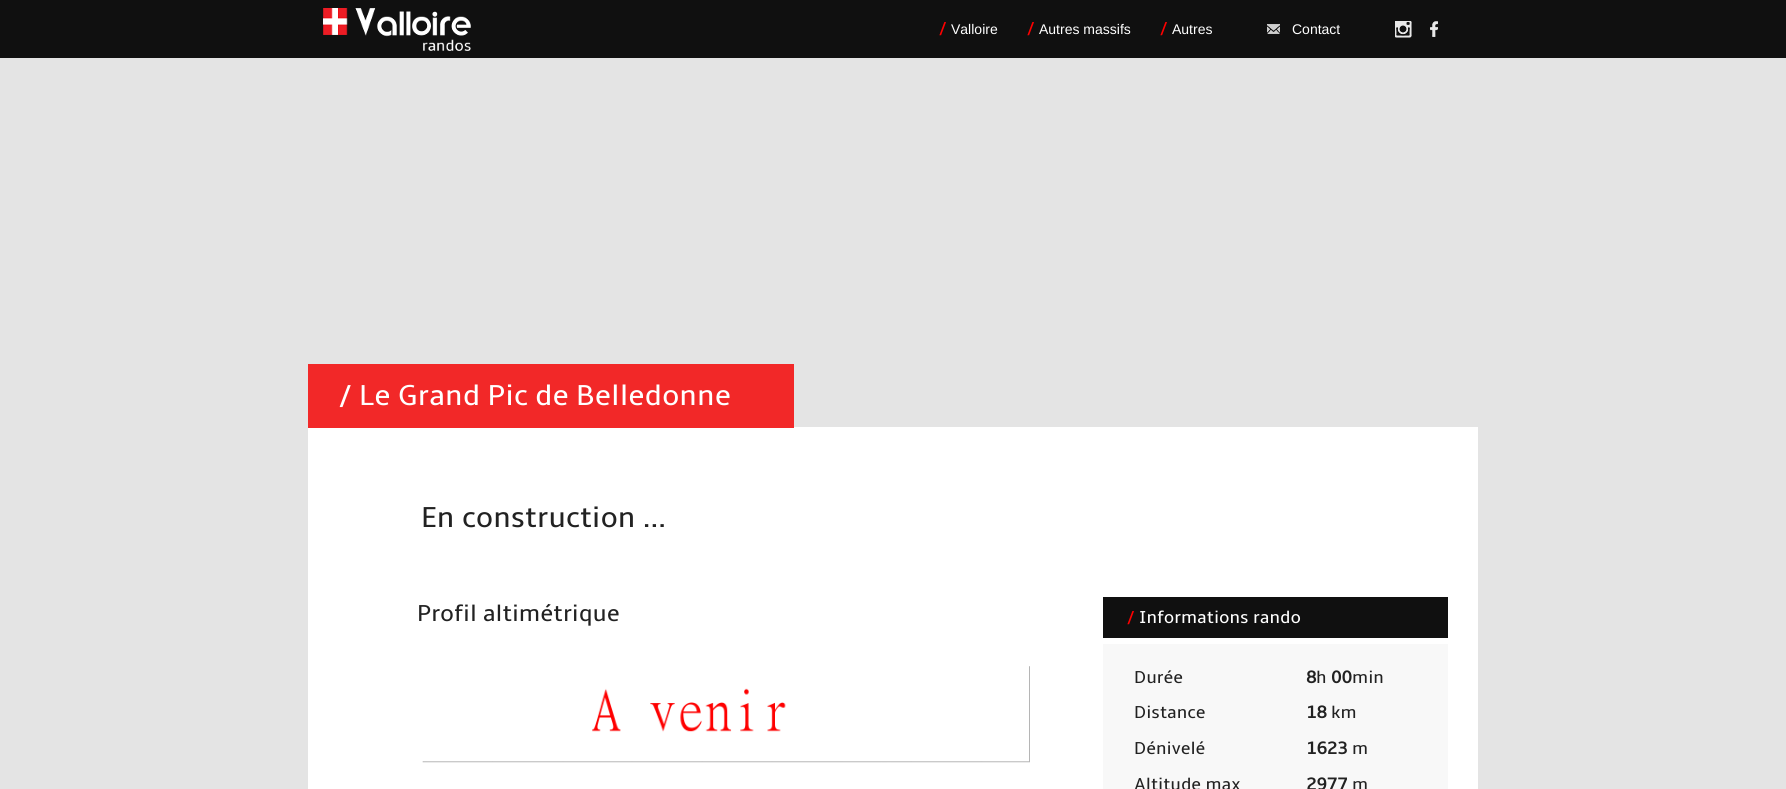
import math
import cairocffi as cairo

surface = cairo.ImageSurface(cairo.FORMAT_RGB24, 1786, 789)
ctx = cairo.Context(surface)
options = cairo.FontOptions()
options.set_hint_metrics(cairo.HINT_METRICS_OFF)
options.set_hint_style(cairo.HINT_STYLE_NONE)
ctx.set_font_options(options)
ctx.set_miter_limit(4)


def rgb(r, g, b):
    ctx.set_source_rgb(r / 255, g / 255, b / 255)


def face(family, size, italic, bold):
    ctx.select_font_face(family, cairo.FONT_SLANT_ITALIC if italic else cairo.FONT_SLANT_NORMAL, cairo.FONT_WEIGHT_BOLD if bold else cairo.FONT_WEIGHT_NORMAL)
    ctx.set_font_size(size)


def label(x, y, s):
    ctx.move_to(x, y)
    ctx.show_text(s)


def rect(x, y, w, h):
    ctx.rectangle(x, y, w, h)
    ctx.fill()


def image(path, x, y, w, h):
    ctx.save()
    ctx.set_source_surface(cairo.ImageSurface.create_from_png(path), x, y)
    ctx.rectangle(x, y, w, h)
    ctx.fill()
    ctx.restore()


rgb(228, 228, 228)
ctx.paint()
rgb(16, 16, 16)
rect(0, 0, 1786, 58)
image('image0.png', 323, 8, 148, 43)
face('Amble', 18, 0, 0)
rgb(255, 0, 0)
label(939, 34, '/')
face('Liberation Sans', 14, 0, 0)
rgb(255, 255, 255)
label(951, 34, 'Valloire')
face('Amble', 18, 0, 0)
rgb(255, 0, 0)
label(1027, 34, '/')
face('Liberation Sans', 14, 0, 0)
rgb(255, 255, 255)
label(1039, 34, 'Autres massifs')
face('Amble', 18, 0, 0)
rgb(255, 0, 0)
label(1160, 34, '/')
face('Liberation Sans', 14, 0, 0)
rgb(255, 255, 255)
label(1172, 34, 'Autres')
image('image1.png', 1267, 24, 13, 10)
label(1292, 34, 'Contact')
image('image2.png', 1395, 21, 17, 17)
image('image3.png', 1430, 21, 8, 16)
rect(308, 427, 1170, 362)
rgb(242, 40, 40)
rect(308, 364, 486, 64)
face('Amble', 30, 0, 0)
rgb(255, 255, 255)
label(339, 405, '/ Le Grand Pic de Belledonne')
rgb(34, 34, 34)
label(421, 527, 'En construction ...')
face('Amble', 24, 0, 0)
label(417, 621, 'Profil altimétrique')
image('image4.png', 422, 666, 608, 97)
rgb(16, 16, 16)
rect(1103, 597, 345, 41)
face('Amble', 18, 0, 0)
rgb(255, 0, 0)
label(1127, 623, '/')
rgb(255, 255, 255)
label(1139, 623, 'Informations rando')
rgb(248, 248, 248)
rect(1103, 644, 345, 145)
rgb(34, 34, 34)
label(1134, 683, 'Durée')
face('Amble', 18, 0, 1)
label(1306, 683, '8')
face('Amble', 18, 0, 0)
label(1316, 683, 'h')
face('Amble', 18, 0, 1)
label(1331, 683, '00')
face('Amble', 18, 0, 0)
label(1352, 683, 'min')
label(1134, 718, 'Distance')
face('Amble', 18, 0, 1)
label(1306, 718, '18')
face('Amble', 18, 0, 0)
label(1331, 718, 'km')
label(1134, 754, 'Dénivelé')
face('Amble', 18, 0, 1)
label(1306, 754, '1623')
face('Amble', 18, 0, 0)
label(1352, 754, 'm')
label(1134, 790, 'Altitude max')
face('Amble', 18, 0, 1)
label(1306, 790, '2977')
face('Amble', 18, 0, 0)
label(1352, 790, 'm')
surface.write_to_png('render.png')
